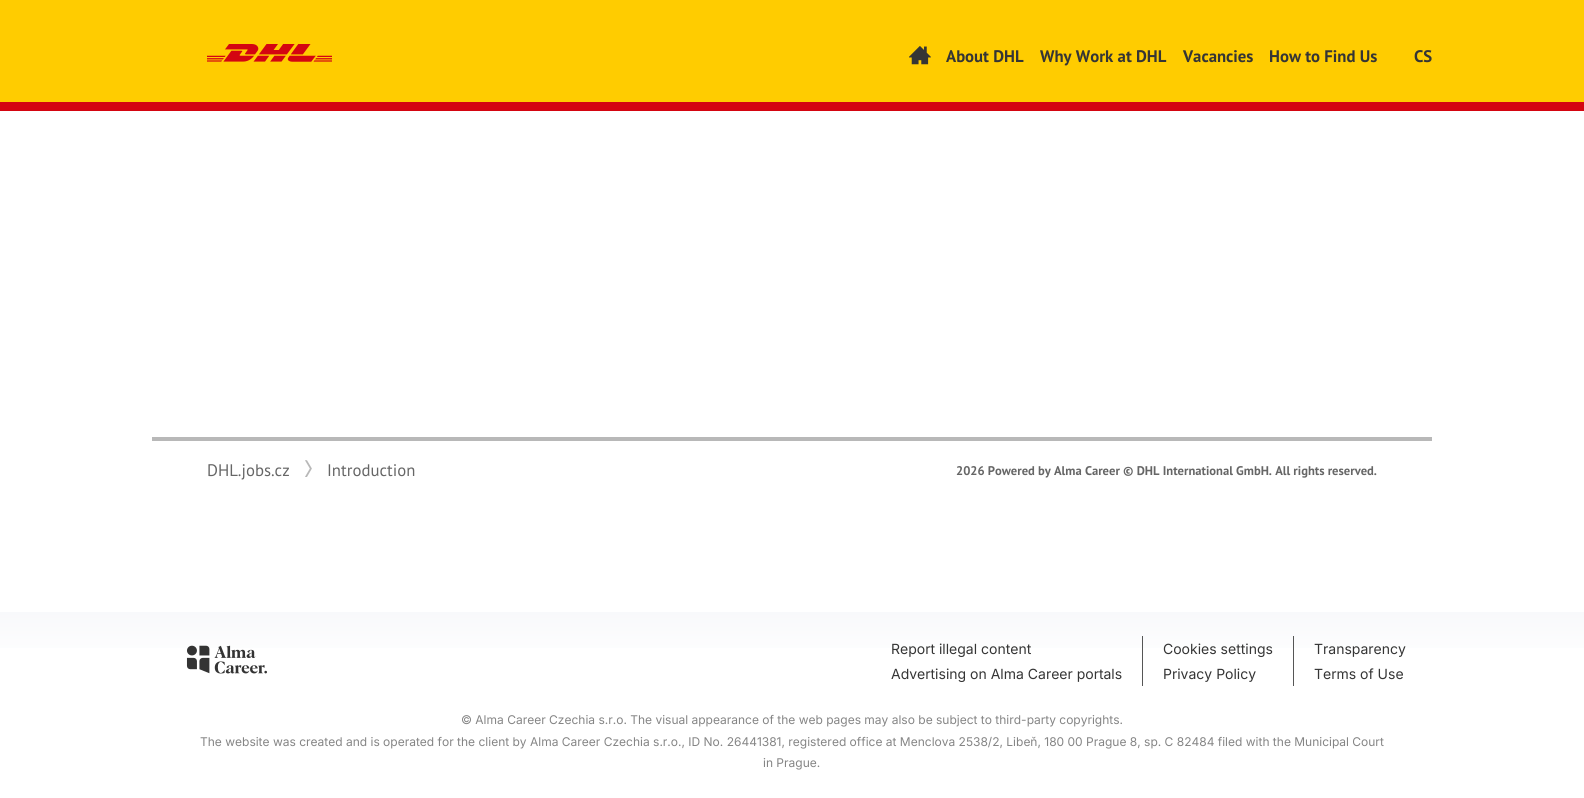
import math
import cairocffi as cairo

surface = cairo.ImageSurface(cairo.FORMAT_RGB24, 1584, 798)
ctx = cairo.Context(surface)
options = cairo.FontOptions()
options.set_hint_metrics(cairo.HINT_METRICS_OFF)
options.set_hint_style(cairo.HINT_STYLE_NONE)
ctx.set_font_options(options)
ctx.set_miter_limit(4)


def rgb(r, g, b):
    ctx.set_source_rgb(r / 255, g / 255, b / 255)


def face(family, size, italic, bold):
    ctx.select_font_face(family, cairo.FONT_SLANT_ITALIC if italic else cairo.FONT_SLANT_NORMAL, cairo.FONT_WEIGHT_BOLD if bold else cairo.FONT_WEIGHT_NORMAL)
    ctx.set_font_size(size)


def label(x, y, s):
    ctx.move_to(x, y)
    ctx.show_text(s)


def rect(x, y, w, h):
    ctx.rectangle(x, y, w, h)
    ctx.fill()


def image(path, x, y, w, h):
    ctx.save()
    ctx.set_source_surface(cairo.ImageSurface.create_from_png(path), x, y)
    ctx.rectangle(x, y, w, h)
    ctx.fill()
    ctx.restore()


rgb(255, 255, 255)
ctx.paint()
rgb(255, 204, 0)
rect(0, 0, 1584, 102)
rgb(212, 5, 17)
rect(0, 102, 1584, 9)
image('image0.png', 207, 44, 125, 18)
image('image1.png', 909, 46, 22, 19)
face('PT Sans', 16.75, 0, 1)
rgb(53, 53, 53)
label(946, 62, 'About DHL')
label(1040, 62, 'Why Work at DHL')
label(1183, 62, 'Vacancies')
label(1269, 62, 'How to Find Us')
label(1414, 62, 'CS')
rgb(184, 184, 184)
rect(152, 437, 1280, 4)
face('PT Sans', 16.75, 0, 0)
rgb(102, 102, 102)
label(207, 476, 'DHL.jobs.cz')
image('image2.png', 305, 460, 7, 17)
label(327, 476, 'Introduction')
face('PT Sans', 12.6, 0, 1)
label(956, 475, '2026 Powered by Alma Career © DHL International GmbH. All rights reserved.')
gradient = cairo.LinearGradient(792, 612, 792, 798)
gradient.add_color_stop_rgba(0, 0.973, 0.976, 0.984, 1)
gradient.add_color_stop_rgba(0.3, 1, 1, 1, 1)
gradient.add_color_stop_rgba(1, 1, 1, 1, 1)
ctx.set_source(gradient)
rect(0, 612, 1584, 36)
image('image3.png', 186, 645, 81, 29)
rgb(86, 86, 86)
rect(1142, 636, 1, 50)
face('Inter', 14, 0, 0)
rgb(53, 53, 53)
label(891, 654, 'Report illegal content')
rgb(86, 86, 86)
rect(1293, 636, 1, 50)
rgb(53, 53, 53)
label(1163, 654, 'Cookies settings')
label(1314, 654, 'Transparency')
label(891, 679, 'Advertising on Alma Career portals')
label(1163, 679, 'Privacy Policy')
label(1314, 679, 'Terms of Use')
face('Inter', 12, 0, 0)
rgb(133, 133, 133)
label(461, 724, '© Alma Career Czechia s.r.o. The visual appearance of the web pages may also be subject to third-party copyrights.')
label(200, 746, 'The website was created and is operated for the client by Alma Career Czechia s.r.o., ID No. 26441381, registered office at Menclova 2538/2, Libeň, 180 00 Prague 8, sp. C 82484 filed with the Municipal Court')
label(763, 767, 'in Prague.')
surface.write_to_png('render.png')
